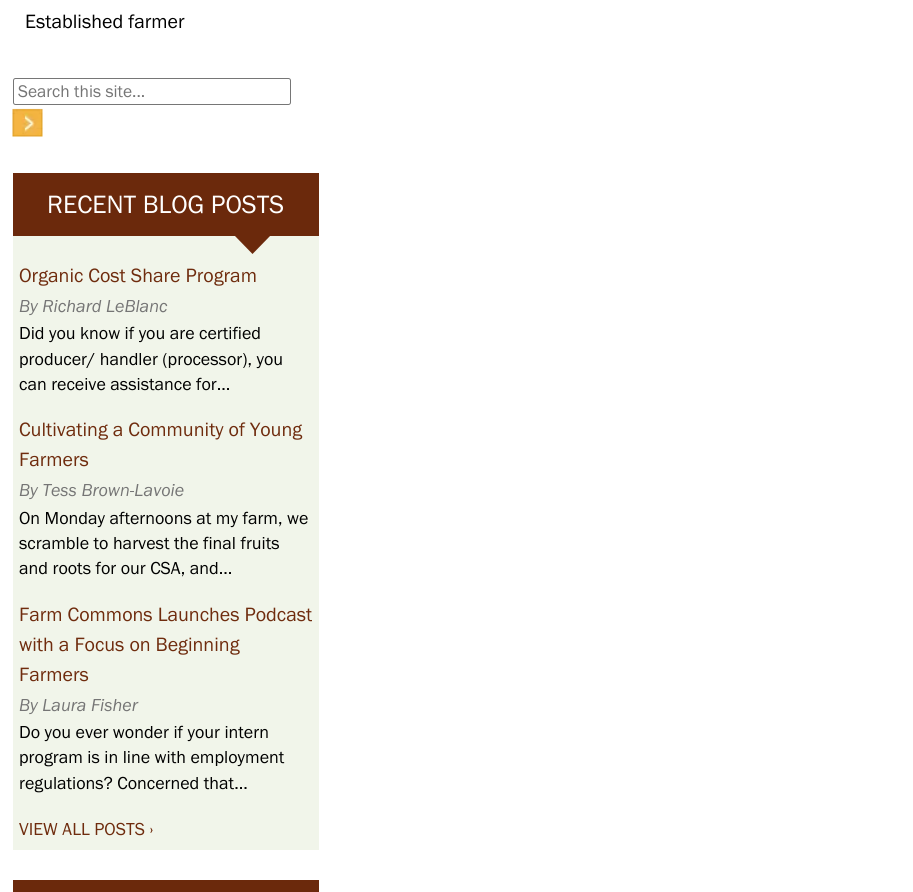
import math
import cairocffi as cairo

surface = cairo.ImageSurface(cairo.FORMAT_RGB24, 913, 892)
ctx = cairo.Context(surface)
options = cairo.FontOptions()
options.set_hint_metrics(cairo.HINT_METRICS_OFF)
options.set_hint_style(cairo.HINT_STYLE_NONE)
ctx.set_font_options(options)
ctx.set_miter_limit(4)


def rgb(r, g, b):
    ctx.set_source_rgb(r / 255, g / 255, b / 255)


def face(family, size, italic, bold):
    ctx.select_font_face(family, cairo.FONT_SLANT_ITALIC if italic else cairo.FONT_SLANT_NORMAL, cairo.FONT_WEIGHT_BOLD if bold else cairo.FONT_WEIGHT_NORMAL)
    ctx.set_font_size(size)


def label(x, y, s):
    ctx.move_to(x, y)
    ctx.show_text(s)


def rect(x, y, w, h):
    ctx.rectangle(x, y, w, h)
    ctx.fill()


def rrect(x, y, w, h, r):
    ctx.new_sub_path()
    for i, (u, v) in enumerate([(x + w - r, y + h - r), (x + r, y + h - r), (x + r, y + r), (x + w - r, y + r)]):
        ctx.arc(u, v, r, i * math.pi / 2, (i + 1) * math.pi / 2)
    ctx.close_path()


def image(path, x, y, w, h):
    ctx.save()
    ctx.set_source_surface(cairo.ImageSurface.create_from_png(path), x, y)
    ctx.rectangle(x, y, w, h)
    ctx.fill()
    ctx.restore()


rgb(255, 255, 255)
ctx.paint()
face('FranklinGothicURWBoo', 20, 0, 0)
rgb(0, 0, 0)
label(25, 28, 'Established farmer')
rrect(13.5, 78.5, 277, 26, 2)
rgb(118, 118, 118)
ctx.set_line_width(1)
ctx.stroke()
face('FranklinGothicURWBoo', 17.5, 0, 0)
rgb(117, 117, 117)
label(18, 97, 'Search this site...')
image('image0.png', 12, 108, 31, 29)
rgb(241, 245, 234)
rect(13, 236, 306, 614)
rgb(107, 41, 12)
rect(13, 173, 306, 63)
face('FranklinGothicURWBoo', 26, 0, 0)
rgb(255, 255, 255)
label(47, 213, 'RECENT BLOG POSTS')
rgb(107, 41, 12)
ctx.new_path()
ctx.move_to(234, 235)
ctx.line_to(271, 235)
ctx.line_to(252.5, 254)
ctx.close_path()
ctx.fill()
face('FranklinGothicURWBoo', 20, 0, 0)
rgb(111, 44, 14)
label(19, 282, 'Organic Cost Share Program')
face('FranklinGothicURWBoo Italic', 18, 1, 0)
rgb(117, 117, 117)
label(19, 312, 'By Richard LeBlanc')
face('FranklinGothicURWBoo', 18, 0, 0)
rgb(0, 0, 0)
label(19, 339, 'Did you know if you are certified')
label(19, 365, 'producer/ handler (processor), you')
label(19, 390, 'can receive assistance for...')
face('FranklinGothicURWBoo', 20, 0, 0)
rgb(111, 44, 14)
label(19, 436, 'Cultivating a Community of Young')
label(19, 466, 'Farmers')
face('FranklinGothicURWBoo Italic', 18, 1, 0)
rgb(117, 117, 117)
label(19, 496, 'By Tess Brown-Lavoie')
face('FranklinGothicURWBoo', 18, 0, 0)
rgb(0, 0, 0)
label(19, 524, 'On Monday afternoons at my farm, we')
label(19, 549, 'scramble to harvest the final fruits')
label(19, 574, 'and roots for our CSA, and...')
face('FranklinGothicURWBoo', 20, 0, 0)
rgb(111, 44, 14)
label(19, 621, 'Farm Commons Launches Podcast')
label(19, 651, 'with a Focus on Beginning')
label(19, 681, 'Farmers')
face('FranklinGothicURWBoo Italic', 18, 1, 0)
rgb(117, 117, 117)
label(19, 711, 'By Laura Fisher')
face('FranklinGothicURWBoo', 18, 0, 0)
rgb(0, 0, 0)
label(19, 738, 'Do you ever wonder if your intern')
label(19, 763, 'program is in line with employment')
label(19, 789, 'regulations? Concerned that...')
rgb(111, 44, 14)
label(19, 835, 'VIEW ALL POSTS ›')
rgb(107, 41, 12)
rect(13, 880, 306, 12)
surface.write_to_png('render.png')
